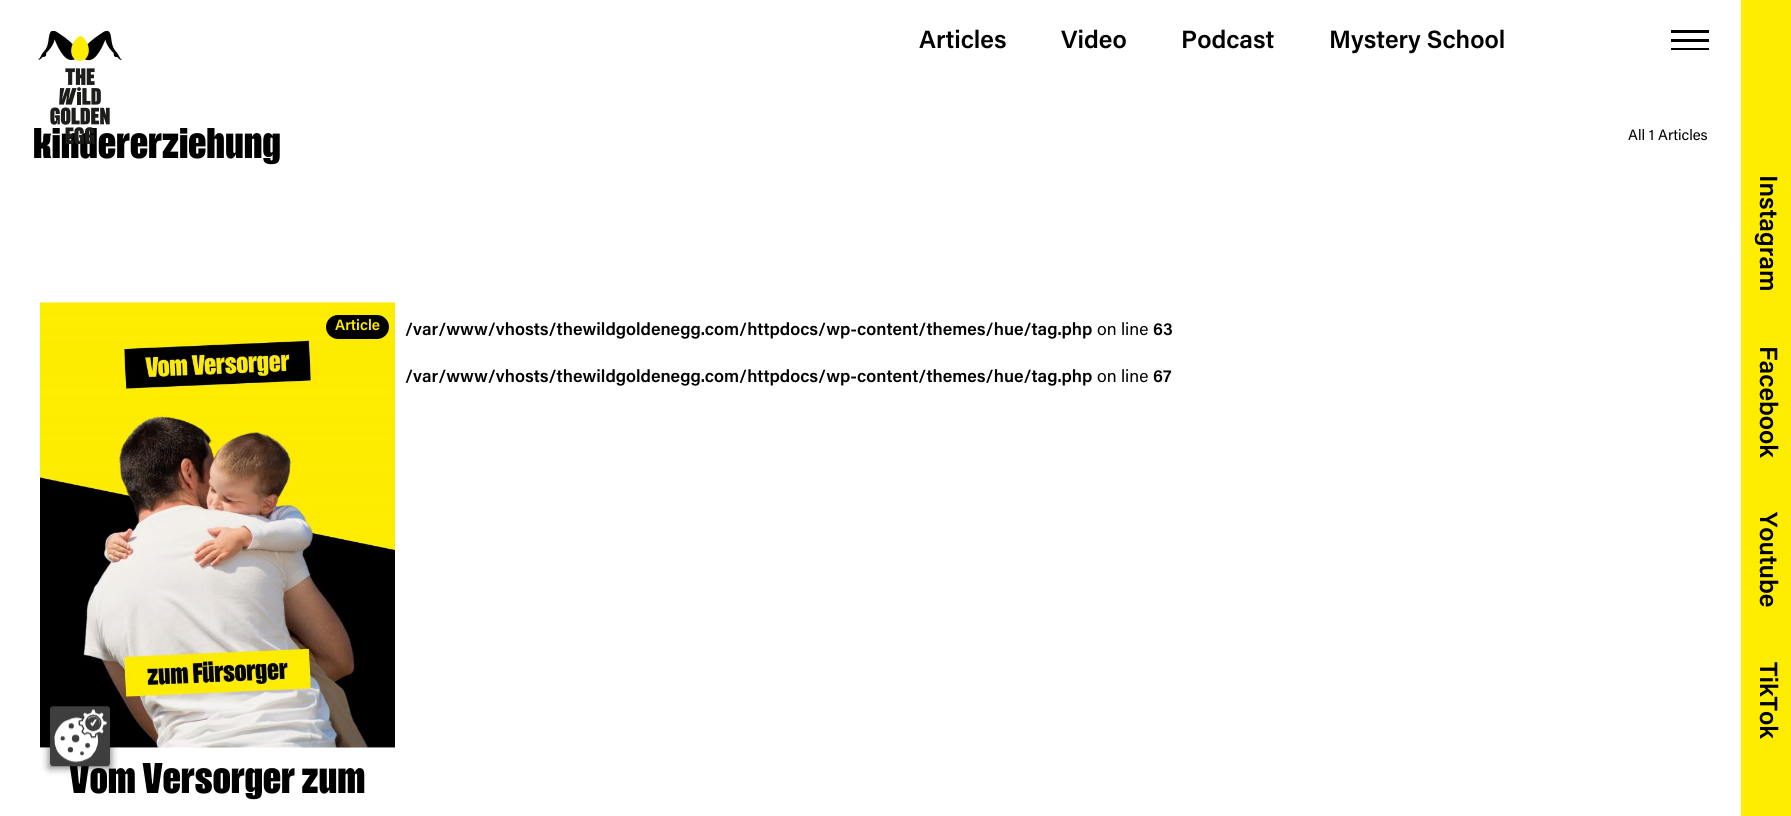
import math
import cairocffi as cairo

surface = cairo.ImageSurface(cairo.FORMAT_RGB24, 1791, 816)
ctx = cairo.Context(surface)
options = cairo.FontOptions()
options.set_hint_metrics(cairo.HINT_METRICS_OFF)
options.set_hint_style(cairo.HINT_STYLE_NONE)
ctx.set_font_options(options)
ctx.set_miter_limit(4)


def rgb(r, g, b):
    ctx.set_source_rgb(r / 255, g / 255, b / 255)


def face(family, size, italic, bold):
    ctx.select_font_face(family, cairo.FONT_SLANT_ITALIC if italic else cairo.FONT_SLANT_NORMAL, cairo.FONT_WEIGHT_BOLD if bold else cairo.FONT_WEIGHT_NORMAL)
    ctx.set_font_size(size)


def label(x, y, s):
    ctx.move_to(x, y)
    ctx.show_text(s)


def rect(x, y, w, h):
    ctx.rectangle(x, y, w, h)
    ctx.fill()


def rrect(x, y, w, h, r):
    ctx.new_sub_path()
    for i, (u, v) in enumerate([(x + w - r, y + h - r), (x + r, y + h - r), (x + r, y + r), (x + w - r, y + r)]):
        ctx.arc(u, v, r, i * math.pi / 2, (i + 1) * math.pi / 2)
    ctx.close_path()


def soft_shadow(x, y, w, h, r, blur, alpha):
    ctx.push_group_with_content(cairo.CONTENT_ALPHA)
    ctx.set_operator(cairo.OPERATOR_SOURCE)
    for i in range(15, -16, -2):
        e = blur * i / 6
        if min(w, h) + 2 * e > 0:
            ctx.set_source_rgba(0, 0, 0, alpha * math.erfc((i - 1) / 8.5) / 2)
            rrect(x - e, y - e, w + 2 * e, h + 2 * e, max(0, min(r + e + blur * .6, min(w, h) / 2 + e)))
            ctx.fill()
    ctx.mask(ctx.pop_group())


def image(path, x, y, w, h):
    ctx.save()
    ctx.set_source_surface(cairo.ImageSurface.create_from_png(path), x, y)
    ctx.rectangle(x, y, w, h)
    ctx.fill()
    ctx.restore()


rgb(255, 255, 255)
ctx.paint()
face('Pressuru', 37.5, 0, 0)
rgb(0, 0, 0)
label(33, 158, 'kindererziehung')
image('image0.png', 38, 31, 84, 114)
face('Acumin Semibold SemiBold', 25, 0, 0)
label(919, 48, 'Articles')
label(1061, 48, 'Video')
label(1181, 48, 'Podcast')
label(1329, 48, 'Mystery School')
rect(1671, 30, 38, 3)
rect(1671, 39, 38, 3)
rect(1671, 48, 38, 2)
face('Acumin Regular', 15, 0, 0)
label(1628, 140, 'All 1 Articles')
image('image1.png', 40, 302, 355, 446)
rrect(326, 315, 63, 24, 12)
ctx.fill()
face('Acumin Semibold SemiBold', 15, 0, 0)
rgb(255, 237, 0)
label(335, 330, 'Article')
face('Pressuru', 37.5, 0, 0)
rgb(0, 0, 0)
label(69, 793, 'Vom Versorger zum')
face('Acumin Semibold SemiBold', 17.5, 0, 0)
label(405, 335, '/var/www/vhosts/thewildgoldenegg.com/httpdocs/wp-content/themes/hue/tag.php')
face('Acumin Regular', 17.5, 0, 0)
label(1097, 335, 'on line')
face('Acumin Semibold SemiBold', 17.5, 0, 0)
label(1153, 335, '63')
label(405, 382, '/var/www/vhosts/thewildgoldenegg.com/httpdocs/wp-content/themes/hue/tag.php')
face('Acumin Regular', 17.5, 0, 0)
label(1097, 382, 'on line')
face('Acumin Semibold SemiBold', 17.5, 0, 0)
label(1153, 382, '67')
rgb(255, 237, 0)
rect(1741, 0, 50, 816)
face('Acumin Semibold SemiBold', 25, 0, 0)
rgb(0, 0, 0)
ctx.save()
ctx.translate(1760, 175)
ctx.rotate(90 * math.pi / 180)
label(0, 0, 'Instagram')
ctx.restore()
ctx.save()
ctx.translate(1760, 346)
ctx.rotate(90 * math.pi / 180)
label(0, 0, 'Facebook')
ctx.restore()
ctx.save()
ctx.translate(1760, 512)
ctx.rotate(90 * math.pi / 180)
label(0, 0, 'Youtube')
ctx.restore()
ctx.save()
ctx.translate(1760, 662)
ctx.rotate(90 * math.pi / 180)
label(0, 0, 'TikTok')
ctx.restore()
rgb(0, 0, 0)
soft_shadow(49, 705, 62, 63, 0, 4, 0.5)
image('image2.png', 50, 706, 60, 61)
surface.write_to_png('render.png')
